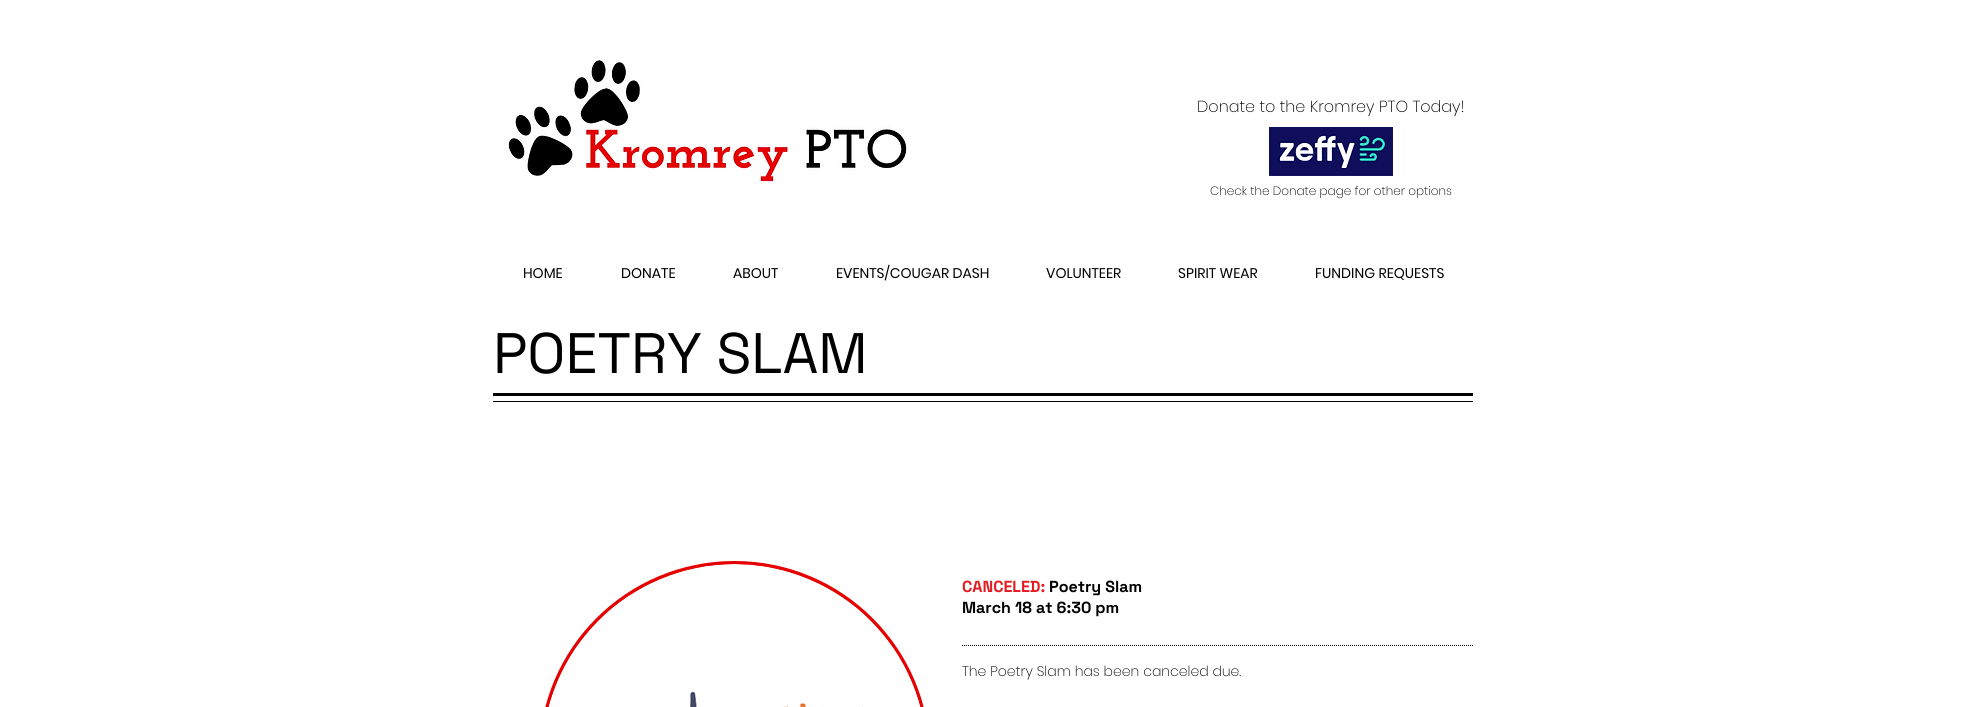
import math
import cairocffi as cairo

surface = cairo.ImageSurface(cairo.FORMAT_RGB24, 1965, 707)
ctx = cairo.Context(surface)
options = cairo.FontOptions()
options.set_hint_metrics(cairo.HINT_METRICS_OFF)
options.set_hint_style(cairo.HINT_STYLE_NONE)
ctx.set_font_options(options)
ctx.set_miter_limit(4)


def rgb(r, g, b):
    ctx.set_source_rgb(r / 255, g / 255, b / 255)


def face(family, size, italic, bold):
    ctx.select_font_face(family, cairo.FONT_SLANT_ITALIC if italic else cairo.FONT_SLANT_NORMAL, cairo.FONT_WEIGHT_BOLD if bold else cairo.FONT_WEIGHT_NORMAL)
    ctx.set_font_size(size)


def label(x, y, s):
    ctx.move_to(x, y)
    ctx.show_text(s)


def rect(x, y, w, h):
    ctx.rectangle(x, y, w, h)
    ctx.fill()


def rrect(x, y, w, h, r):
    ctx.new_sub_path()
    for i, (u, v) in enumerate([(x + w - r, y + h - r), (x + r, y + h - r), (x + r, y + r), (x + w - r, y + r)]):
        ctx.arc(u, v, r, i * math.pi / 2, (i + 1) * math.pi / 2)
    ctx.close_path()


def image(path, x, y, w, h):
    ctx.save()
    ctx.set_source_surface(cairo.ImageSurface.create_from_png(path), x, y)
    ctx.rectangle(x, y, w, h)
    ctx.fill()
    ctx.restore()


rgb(255, 255, 255)
ctx.paint()
image('image0.png', 508, 60, 400, 122)
face('Poppins ExtraLight', 16, 0, 0)
rgb(0, 0, 0)
label(1197, 112, 'Donate to the Kromrey PTO Today!')
image('image1.png', 1269, 127, 124, 49)
face('Poppins ExtraLight', 12, 0, 0)
label(1210, 195, 'Check the Donate page for other options')
face('Poppins', 14, 0, 0)
label(523, 278, 'HOME')
label(621, 278, 'DONATE')
label(733, 278, 'ABOUT')
label(836, 278, 'EVENTS/COUGAR DASH')
label(1046, 278, 'VOLUNTEER')
label(1178, 278, 'SPIRIT WEAR')
label(1315, 278, 'FUNDING REQUESTS')
face('Space Grotesk', 57, 0, 0)
label(493, 373, 'POETRY SLAM')
rect(493, 393, 980, 3)
rect(493, 401, 980, 1)
rgb(230, 0, 0)
rrect(540.5, 562.5, 388, 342, 194)
ctx.fill_preserve()
ctx.set_line_width(3)
ctx.stroke()
image('image2.png', 548, 564, 373, 143)
face('Space Grotesk', 16, 0, 1)
rgb(226, 28, 33)
label(962, 592, 'CANCELED:')
rgb(0, 0, 0)
label(1049, 592, 'Poetry Slam')
label(962, 613, 'March 18 at 6:30 pm')
ctx.new_path()
ctx.move_to(962, 645.5)
ctx.line_to(1473, 645.5)
ctx.set_line_width(1)
ctx.set_dash([1, 1])
ctx.stroke()
face('Poppins ExtraLight', 14, 0, 0)
label(962, 676, 'The Poetry Slam has been canceled due.')
surface.write_to_png('render.png')
